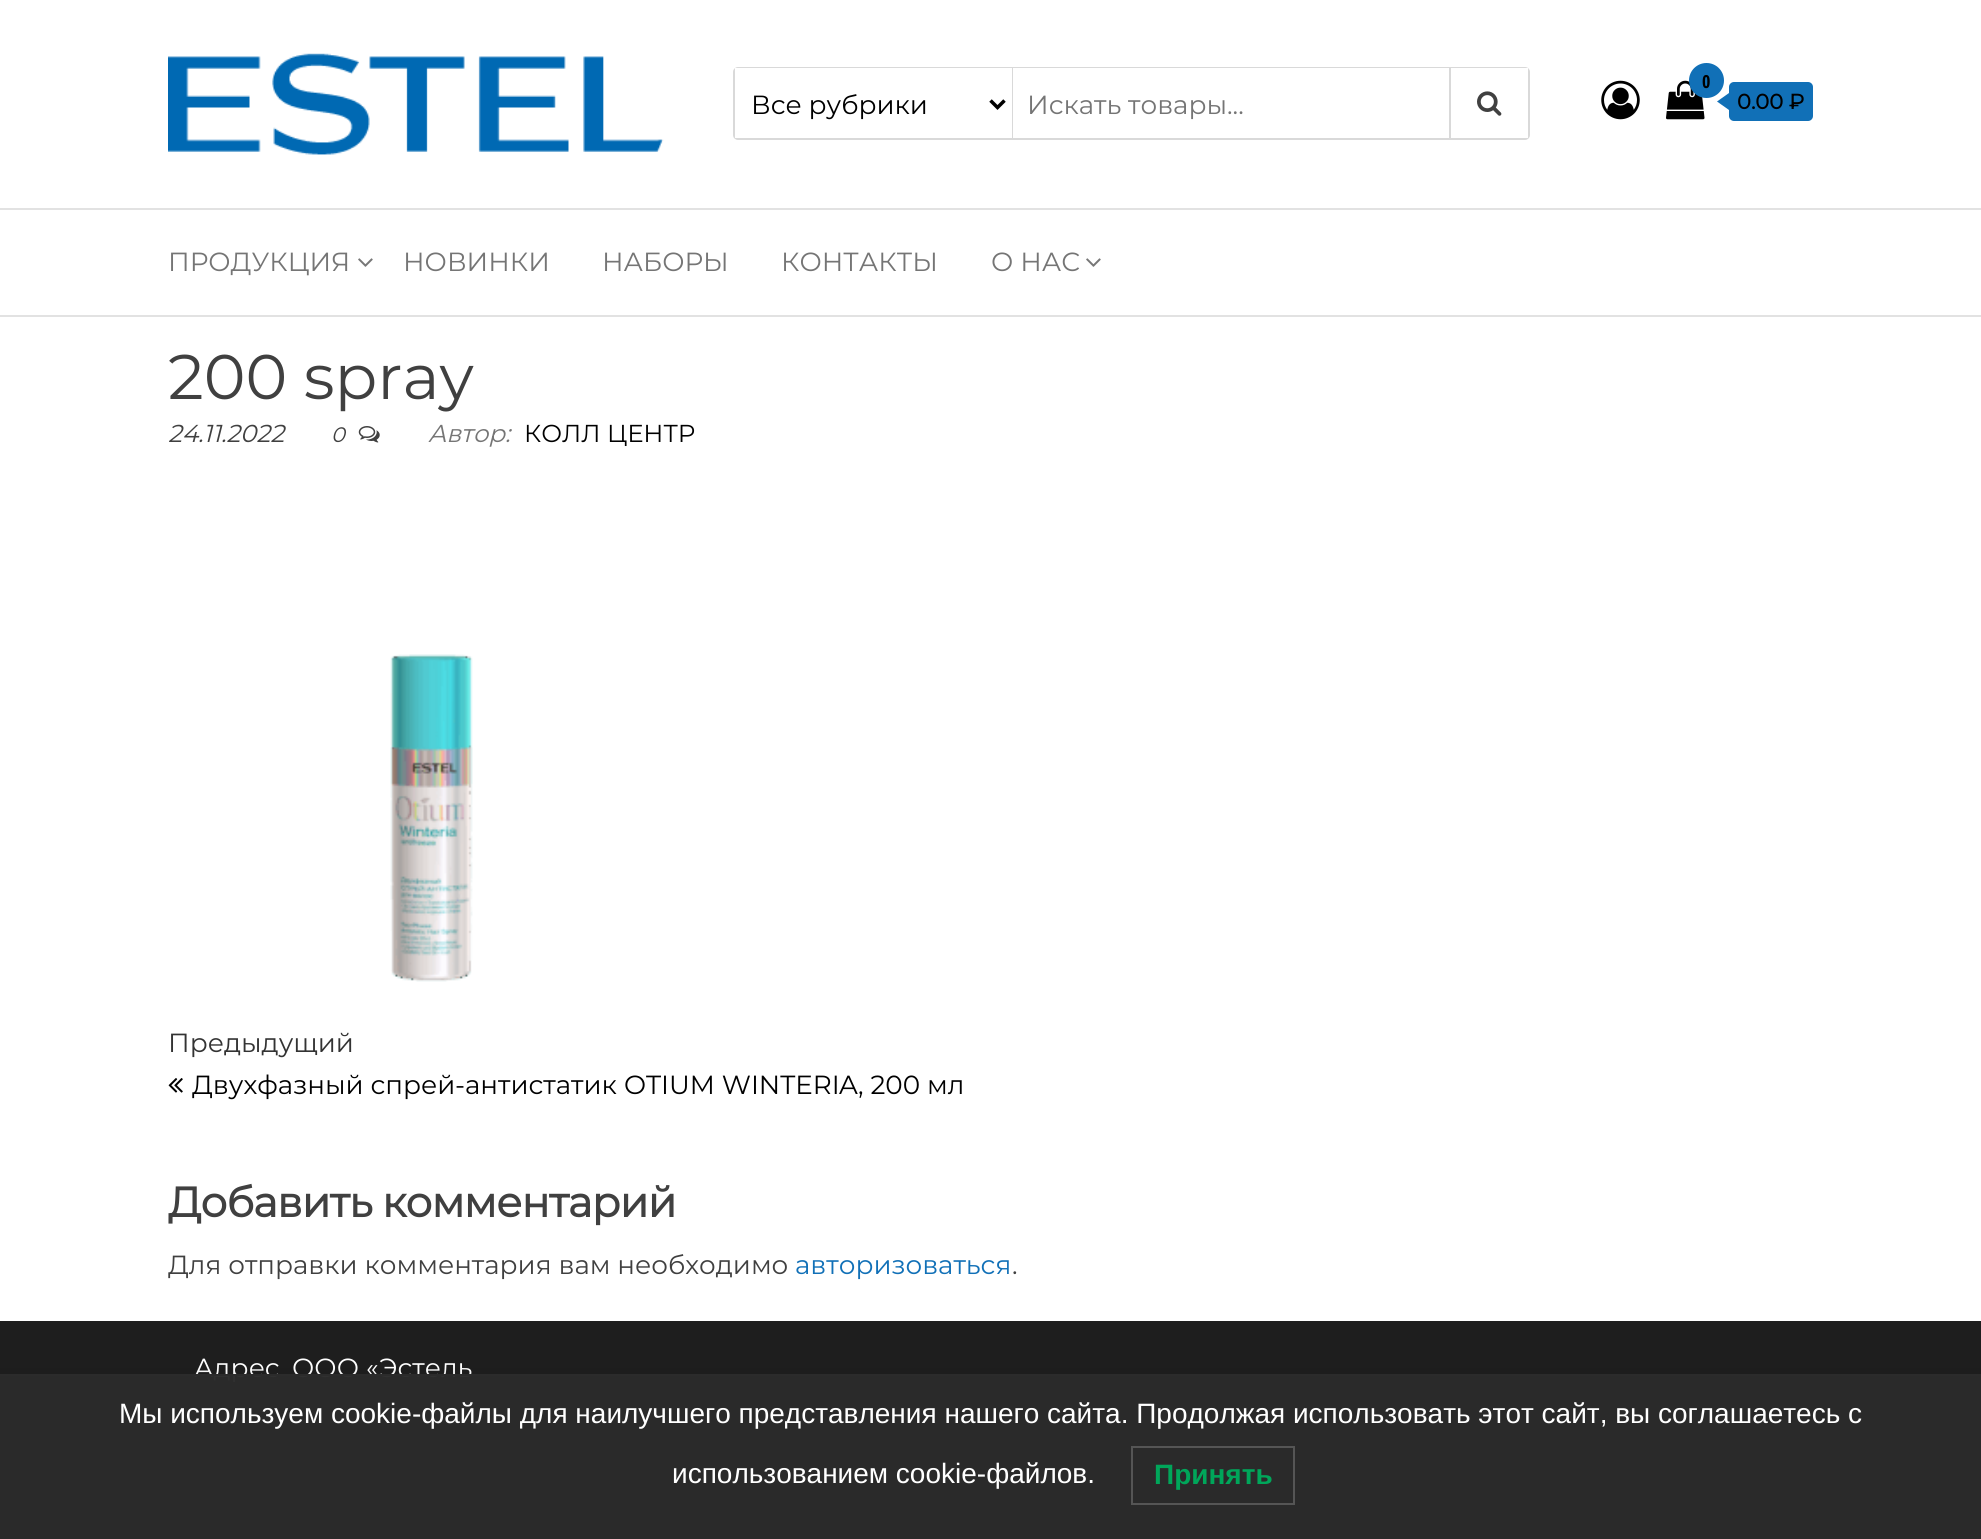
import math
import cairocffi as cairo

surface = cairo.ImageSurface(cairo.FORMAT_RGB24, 1981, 1539)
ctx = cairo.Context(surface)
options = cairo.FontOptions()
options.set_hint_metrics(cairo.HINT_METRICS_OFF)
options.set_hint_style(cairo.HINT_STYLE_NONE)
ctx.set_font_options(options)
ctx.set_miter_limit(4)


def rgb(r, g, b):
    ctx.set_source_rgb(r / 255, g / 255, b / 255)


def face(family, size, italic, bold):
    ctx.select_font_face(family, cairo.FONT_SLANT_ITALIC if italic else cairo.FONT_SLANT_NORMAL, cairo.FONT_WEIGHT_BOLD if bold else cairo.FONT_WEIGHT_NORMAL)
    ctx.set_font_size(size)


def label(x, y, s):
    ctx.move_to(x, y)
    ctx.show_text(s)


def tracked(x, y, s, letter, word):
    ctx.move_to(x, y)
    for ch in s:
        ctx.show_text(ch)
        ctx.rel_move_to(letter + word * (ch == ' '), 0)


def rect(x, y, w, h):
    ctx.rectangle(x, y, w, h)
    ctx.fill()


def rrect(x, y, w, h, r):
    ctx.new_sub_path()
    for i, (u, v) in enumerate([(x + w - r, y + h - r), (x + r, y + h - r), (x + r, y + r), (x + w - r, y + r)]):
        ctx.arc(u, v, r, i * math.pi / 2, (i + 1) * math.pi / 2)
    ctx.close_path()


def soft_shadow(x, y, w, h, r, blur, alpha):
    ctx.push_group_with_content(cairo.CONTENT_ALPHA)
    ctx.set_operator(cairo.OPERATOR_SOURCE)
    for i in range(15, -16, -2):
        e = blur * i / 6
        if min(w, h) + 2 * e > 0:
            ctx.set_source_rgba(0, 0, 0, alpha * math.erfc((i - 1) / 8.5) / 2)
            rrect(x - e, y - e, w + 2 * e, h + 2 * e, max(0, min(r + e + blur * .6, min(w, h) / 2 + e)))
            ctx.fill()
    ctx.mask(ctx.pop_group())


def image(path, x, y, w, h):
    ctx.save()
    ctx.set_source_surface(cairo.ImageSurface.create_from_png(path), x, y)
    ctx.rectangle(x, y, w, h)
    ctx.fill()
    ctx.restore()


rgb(255, 255, 255)
ctx.paint()
image('image0.png', 168, 53, 496, 102)
rrect(734, 68, 795, 71, 4)
rgb(217, 217, 217)
ctx.stroke()
rgb(255, 255, 255)
rect(735, 68, 277, 70)
rgb(217, 217, 217)
rect(1012, 68, 1, 70)
ctx.new_path()
ctx.move_to(990.5, 100.5)
ctx.line_to(997.5, 107.5)
ctx.line_to(1004.5, 100.5)
rgb(0, 0, 0)
ctx.set_line_width(3.5)
ctx.stroke()
face('Montserrat Thin', 26.25, 0, 0)
label(751, 114, 'Все рубрики')
rgb(255, 255, 255)
rect(1013, 68, 515, 70)
rgb(117, 117, 117)
label(1027, 114, 'Искать товары')
face('Montserrat', 26.25, 0, 0)
label(1227, 114, '...')
rgb(217, 217, 217)
rect(1449, 68, 2, 70)
image('image1.png', 1477, 91, 25, 25)
image('image2.png', 1601, 80, 39, 40)
image('image3.png', 1666, 80, 39, 40)
rgb(17, 112, 183)
ctx.arc(1706.5, 80.5, 17.5, 0, 2 * math.pi)
ctx.fill()
face('Open Sans Condensed', 18, 0, 1)
rgb(0, 0, 0)
label(1702, 88, '0')
rgb(17, 112, 183)
rrect(1729, 82, 84, 39, 5)
ctx.fill()
ctx.new_path()
ctx.move_to(1729, 93)
ctx.line_to(1729, 110)
ctx.line_to(1717, 101.5)
ctx.close_path()
ctx.fill()
face('Montserrat', 21, 0, 1)
rgb(0, 0, 0)
label(1737, 109, '0.00 ₽')
rgb(226, 226, 226)
rect(0, 208, 1981, 2)
rect(0, 315, 1981, 2)
face('Montserrat Thin', 26.25, 0, 0)
rgb(117, 117, 117)
label(168, 271, 'ПРОДУКЦИЯ')
image('image4.png', 358, 258, 15, 9)
label(403, 271, 'НОВИНКИ')
label(602, 271, 'НАБОРЫ')
label(781, 271, 'КОНТАКТЫ')
label(991, 271, 'О НАС')
image('image4.png', 1086, 258, 15, 9)
face('Montserrat', 63, 0, 0)
rgb(64, 64, 64)
label(168, 399, '200 spray')
face('Montserrat', 24.5, 1, 0)
label(168, 442, '24.11.2022')
face('Montserrat', 21, 1, 0)
label(331, 442, '0')
image('image5.png', 358, 426, 22, 17)
face('Montserrat Thin', 24.5, 1, 0)
rgb(117, 117, 117)
label(428, 442, 'Автор')
face('Montserrat', 24.5, 1, 0)
label(505, 442, ':')
face('Montserrat Thin', 24.5, 0, 0)
rgb(0, 0, 0)
label(524, 442, 'КОЛЛ ЦЕНТР')
image('image6.png', 390, 654, 83, 328)
face('Montserrat Thin', 26.25, 0, 0)
rgb(51, 51, 51)
label(168, 1052, 'Предыдущий')
image('image7.png', 168, 1078, 15, 15)
rgb(0, 0, 0)
label(192, 1094, 'Двухфазный спрей')
face('Montserrat', 26.25, 0, 0)
label(455, 1094, '-')
face('Montserrat Thin', 26.25, 0, 0)
label(465, 1094, 'антистатик')
face('Montserrat', 26.25, 0, 0)
label(624, 1094, 'OTIUM WINTERI')
face('Montserrat Thin', 26.25, 0, 0)
label(839, 1094, 'A')
face('Montserrat', 26.25, 0, 0)
label(858, 1094, ', 200')
face('Montserrat Thin', 26.25, 0, 0)
label(927, 1094, 'мл')
face('Montserrat', 42, 0, 1)
rgb(64, 64, 64)
tracked(168, 1217, 'Добавить комментарий', -0.8, 0)
face('Montserrat Thin', 26.25, 0, 0)
label(168, 1274, 'Для отправки комментария вам необходимо')
rgb(17, 112, 183)
label(795, 1274, 'авторизоваться')
face('Montserrat', 26.25, 0, 0)
rgb(64, 64, 64)
label(1012, 1274, '.')
rgb(30, 30, 30)
rect(0, 1321, 1981, 218)
face('Montserrat Thin', 26.25, 0, 0)
rgb(255, 255, 255)
label(194, 1377, 'Адрес')
label(292, 1377, 'ООО')
face('Montserrat', 26.25, 0, 0)
label(366, 1377, '«')
face('Montserrat Thin', 26.25, 0, 0)
label(379, 1377, 'Эстель')
ctx.save()
ctx.rectangle(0, 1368, 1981, 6)
ctx.clip()
rgb(0, 0, 0)
soft_shadow(0, 1374, 1981, 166, 0, 7, 0.1)
ctx.restore()
ctx.set_source_rgba(0.169, 0.169, 0.169, 0.97)
rect(0, 1376, 1981, 163)
rgb(43, 43, 43)
rect(0, 1374, 1981, 2)
face('Liberation Sans', 28, 0, 0)
rgb(255, 255, 255)
label(119, 1423, 'Мы используем cookie-файлы для наилучшего представления нашего сайта. Продолжая использовать этот сайт, вы соглашаетесь с')
label(672, 1483, 'использованием cookie-файлов.')
ctx.rectangle(1132, 1447, 162, 57)
rgb(85, 85, 85)
ctx.set_line_width(2)
ctx.stroke()
face('Liberation Sans', 28, 0, 1)
rgb(0, 166, 90)
label(1154, 1484, 'Принять')
surface.write_to_png('render.png')
